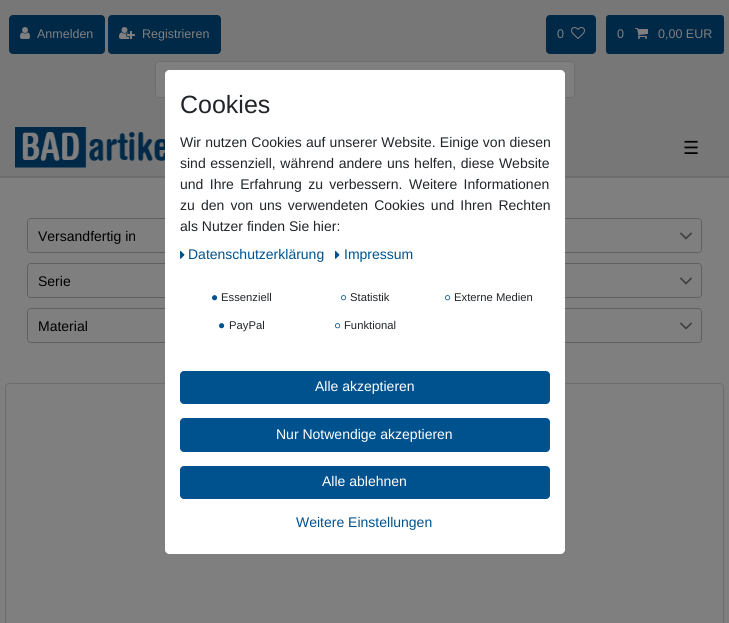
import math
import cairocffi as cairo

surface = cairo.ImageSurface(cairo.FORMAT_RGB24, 729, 623)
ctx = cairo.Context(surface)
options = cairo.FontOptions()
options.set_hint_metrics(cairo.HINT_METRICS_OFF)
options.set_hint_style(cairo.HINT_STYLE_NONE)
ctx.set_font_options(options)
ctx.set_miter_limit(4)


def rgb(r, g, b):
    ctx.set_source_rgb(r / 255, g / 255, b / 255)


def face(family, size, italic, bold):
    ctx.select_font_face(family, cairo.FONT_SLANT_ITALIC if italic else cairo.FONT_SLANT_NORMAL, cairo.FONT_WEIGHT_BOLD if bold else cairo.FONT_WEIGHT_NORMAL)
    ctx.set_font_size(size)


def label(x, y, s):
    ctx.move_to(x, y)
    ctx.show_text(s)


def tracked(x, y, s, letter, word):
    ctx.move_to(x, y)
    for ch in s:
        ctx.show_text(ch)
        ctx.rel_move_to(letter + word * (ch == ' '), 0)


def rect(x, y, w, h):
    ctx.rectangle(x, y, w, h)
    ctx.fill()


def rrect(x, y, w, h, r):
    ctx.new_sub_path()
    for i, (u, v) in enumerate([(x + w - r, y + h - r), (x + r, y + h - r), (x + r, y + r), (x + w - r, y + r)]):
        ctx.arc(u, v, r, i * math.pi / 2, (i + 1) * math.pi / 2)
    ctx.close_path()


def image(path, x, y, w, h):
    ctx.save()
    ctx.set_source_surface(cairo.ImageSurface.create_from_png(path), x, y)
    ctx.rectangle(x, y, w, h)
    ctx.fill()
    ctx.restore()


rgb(255, 255, 255)
ctx.paint()
rgb(239, 239, 239)
rect(0, 0, 729, 176)
rgb(0, 82, 143)
rrect(9, 15, 96, 39, 4)
ctx.fill()
image('image0.png', 20, 27, 10, 12)
face('Liberation Sans', 12.5, 0, 0)
rgb(255, 255, 255)
label(37, 38, 'Anmelden')
rgb(0, 82, 143)
rrect(108, 15, 113, 39, 4)
ctx.fill()
image('image1.png', 119, 27, 16, 12)
rgb(255, 255, 255)
label(142, 38, 'Registrieren')
rgb(0, 82, 143)
rrect(546, 15, 50, 39, 4)
ctx.fill()
rgb(255, 255, 255)
label(557, 38, '0')
image('image2.png', 571, 27, 14, 12)
rgb(0, 82, 143)
rrect(606, 15, 118, 39, 3)
ctx.fill()
rgb(255, 255, 255)
label(617, 38, '0')
image('image3.png', 635, 28, 13, 11)
label(658, 38, '0,00 EUR')
ctx.new_path()
ctx.move_to(159, 61)
ctx.line_to(522, 61)
ctx.line_to(522, 98)
ctx.line_to(159, 98)
ctx.curve_to(157, 98, 155, 96, 155, 94)
ctx.line_to(155, 65)
ctx.curve_to(155, 63, 157, 61, 159, 61)
ctx.close_path()
ctx.fill()
rgb(218, 218, 218)
ctx.set_fill_rule(cairo.FILL_RULE_EVEN_ODD)
ctx.new_path()
ctx.move_to(159, 61)
ctx.line_to(522, 61)
ctx.line_to(522, 98)
ctx.line_to(159, 98)
ctx.curve_to(157, 98, 155, 96, 155, 94)
ctx.line_to(155, 65)
ctx.curve_to(155, 63, 157, 61, 159, 61)
ctx.close_path()
ctx.move_to(159, 62)
ctx.line_to(522, 62)
ctx.line_to(522, 97)
ctx.line_to(159, 97)
ctx.curve_to(157, 97, 156, 96, 156, 94)
ctx.line_to(156, 65)
ctx.curve_to(156, 63, 157, 62, 159, 62)
ctx.close_path()
ctx.fill()
rgb(255, 255, 255)
ctx.new_path()
ctx.move_to(522, 61)
ctx.line_to(571, 61)
ctx.curve_to(573, 61, 575, 63, 575, 65)
ctx.line_to(575, 94)
ctx.curve_to(575, 96, 573, 98, 571, 98)
ctx.line_to(522, 98)
ctx.close_path()
ctx.fill()
rgb(218, 218, 218)
ctx.new_path()
ctx.move_to(522, 61)
ctx.line_to(571, 61)
ctx.curve_to(573, 61, 575, 63, 575, 65)
ctx.line_to(575, 94)
ctx.curve_to(575, 96, 573, 98, 571, 98)
ctx.line_to(522, 98)
ctx.close_path()
ctx.move_to(522, 62)
ctx.line_to(571, 62)
ctx.curve_to(573, 62, 574, 63, 574, 65)
ctx.line_to(574, 94)
ctx.curve_to(574, 96, 573, 97, 571, 97)
ctx.line_to(522, 97)
ctx.close_path()
ctx.fill()
rect(0, 176, 729, 2)
image('image4.png', 15, 127, 150, 41)
face('DejaVu Sans', 18, 0, 0)
rgb(0, 0, 0)
label(683, 154, '☰')
rrect(27.5, 218.5, 332, 34, 3.5)
rgb(191, 191, 191)
ctx.set_line_width(1)
ctx.stroke()
rgb(255, 255, 255)
rrect(28, 219, 331, 33, 3)
ctx.fill()
face('Liberation Sans', 14, 0, 0)
rgb(0, 0, 0)
label(38, 241, 'Versandfertig in')
rrect(370.5, 218.5, 331, 34, 3.5)
rgb(191, 191, 191)
ctx.stroke()
rgb(255, 255, 255)
rrect(371, 219, 330, 33, 3)
ctx.fill()
ctx.new_path()
ctx.move_to(681, 233.5)
ctx.line_to(686, 238.5)
ctx.line_to(691, 233.5)
rgb(128, 128, 128)
ctx.set_line_width(1.7)
ctx.set_line_cap(cairo.LINE_CAP_SQUARE)
ctx.set_line_join(cairo.LINE_JOIN_ROUND)
ctx.stroke()
rrect(27.5, 263.5, 332, 34, 3.5)
rgb(191, 191, 191)
ctx.set_line_width(1)
ctx.set_line_cap(cairo.LINE_CAP_BUTT)
ctx.set_line_join(cairo.LINE_JOIN_MITER)
ctx.stroke()
rgb(255, 255, 255)
rrect(28, 264, 331, 33, 3)
ctx.fill()
rgb(0, 0, 0)
label(38, 286, 'Serie')
rrect(370.5, 263.5, 331, 34, 3.5)
rgb(191, 191, 191)
ctx.stroke()
rgb(255, 255, 255)
rrect(371, 264, 330, 33, 3)
ctx.fill()
ctx.new_path()
ctx.move_to(681, 278.5)
ctx.line_to(686, 283.5)
ctx.line_to(691, 278.5)
rgb(128, 128, 128)
ctx.set_line_width(1.7)
ctx.set_line_cap(cairo.LINE_CAP_SQUARE)
ctx.set_line_join(cairo.LINE_JOIN_ROUND)
ctx.stroke()
rrect(27.5, 308.5, 332, 34, 3.5)
rgb(191, 191, 191)
ctx.set_line_width(1)
ctx.set_line_cap(cairo.LINE_CAP_BUTT)
ctx.set_line_join(cairo.LINE_JOIN_MITER)
ctx.stroke()
rgb(255, 255, 255)
rrect(28, 309, 331, 33, 3)
ctx.fill()
rgb(0, 0, 0)
label(38, 331, 'Material')
rrect(370.5, 308.5, 331, 34, 3.5)
rgb(191, 191, 191)
ctx.stroke()
rgb(255, 255, 255)
rrect(371, 309, 330, 33, 3)
ctx.fill()
ctx.new_path()
ctx.move_to(681, 323.5)
ctx.line_to(686, 328.5)
ctx.line_to(691, 323.5)
rgb(128, 128, 128)
ctx.set_line_width(1.7)
ctx.set_line_cap(cairo.LINE_CAP_SQUARE)
ctx.set_line_join(cairo.LINE_JOIN_ROUND)
ctx.stroke()
rrect(5.5, 383.5, 718, 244, 3.5)
rgb(218, 218, 218)
ctx.set_line_width(1)
ctx.set_line_cap(cairo.LINE_CAP_BUTT)
ctx.set_line_join(cairo.LINE_JOIN_MITER)
ctx.stroke()
rrect(-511, -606, 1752, 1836, 681)
ctx.set_source_rgba(0, 0, 0, 0.5)
ctx.set_line_width(1352)
ctx.stroke()
rgb(255, 255, 255)
rrect(165, 70, 400, 484, 5)
ctx.fill()
face('Liberation Sans', 25, 0, 0)
rgb(33, 37, 41)
label(180, 113, 'Cookies')
face('Liberation Sans', 14, 0, 0)
tracked(180, 147, 'Wir nutzen Cookies auf unserer Website. Einige von diesen', 0, 0.25)
tracked(180, 168, 'sind essenziell, während andere uns helfen, diese Website', 0, 0.75)
tracked(180, 189, 'und Ihre Erfahrung zu verbessern.', 0, 2.5)
tracked(409, 189, 'Weitere Informationen', 0, 2.5)
tracked(180, 210, 'zu den von uns verwendeten Cookies und Ihren Rechten', 0, 2.25)
label(180, 231, 'als Nutzer finden Sie hier:')
image('image5.png', 180, 250, 5, 9)
rgb(0, 82, 143)
label(188, 259, 'Datenschutzerklärung')
image('image5.png', 335, 250, 5, 9)
label(344, 259, 'Impressum')
image('image6.png', 212, 295, 6, 6)
face('Liberation Sans', 11.25, 0, 0)
rgb(33, 37, 41)
label(221, 301, 'Essenziell')
image('image7.png', 341, 295, 6, 6)
label(350, 301, 'Statistik')
image('image7.png', 445, 295, 6, 6)
label(454, 301, 'Externe Medien')
image('image6.png', 219, 323, 6, 6)
label(229, 329, 'PayPal')
image('image7.png', 335, 323, 6, 6)
label(344, 329, 'Funktional')
rgb(0, 82, 143)
rrect(180.5, 371.5, 369, 32, 3.5)
ctx.fill_preserve()
ctx.set_line_width(1)
ctx.stroke()
face('Liberation Sans', 14, 0, 0)
rgb(255, 255, 255)
label(315, 391, 'Alle akzeptieren')
rgb(0, 82, 143)
rrect(180.5, 418.5, 369, 33, 3.5)
ctx.fill_preserve()
ctx.stroke()
rgb(255, 255, 255)
label(276, 439, 'Nur Notwendige akzeptieren')
rgb(0, 82, 143)
rrect(180.5, 466.5, 369, 32, 3.5)
ctx.fill_preserve()
ctx.stroke()
rgb(255, 255, 255)
label(322, 486, 'Alle ablehnen')
rgb(0, 82, 143)
label(296, 527, 'Weitere Einstellungen')
surface.write_to_png('render.png')
